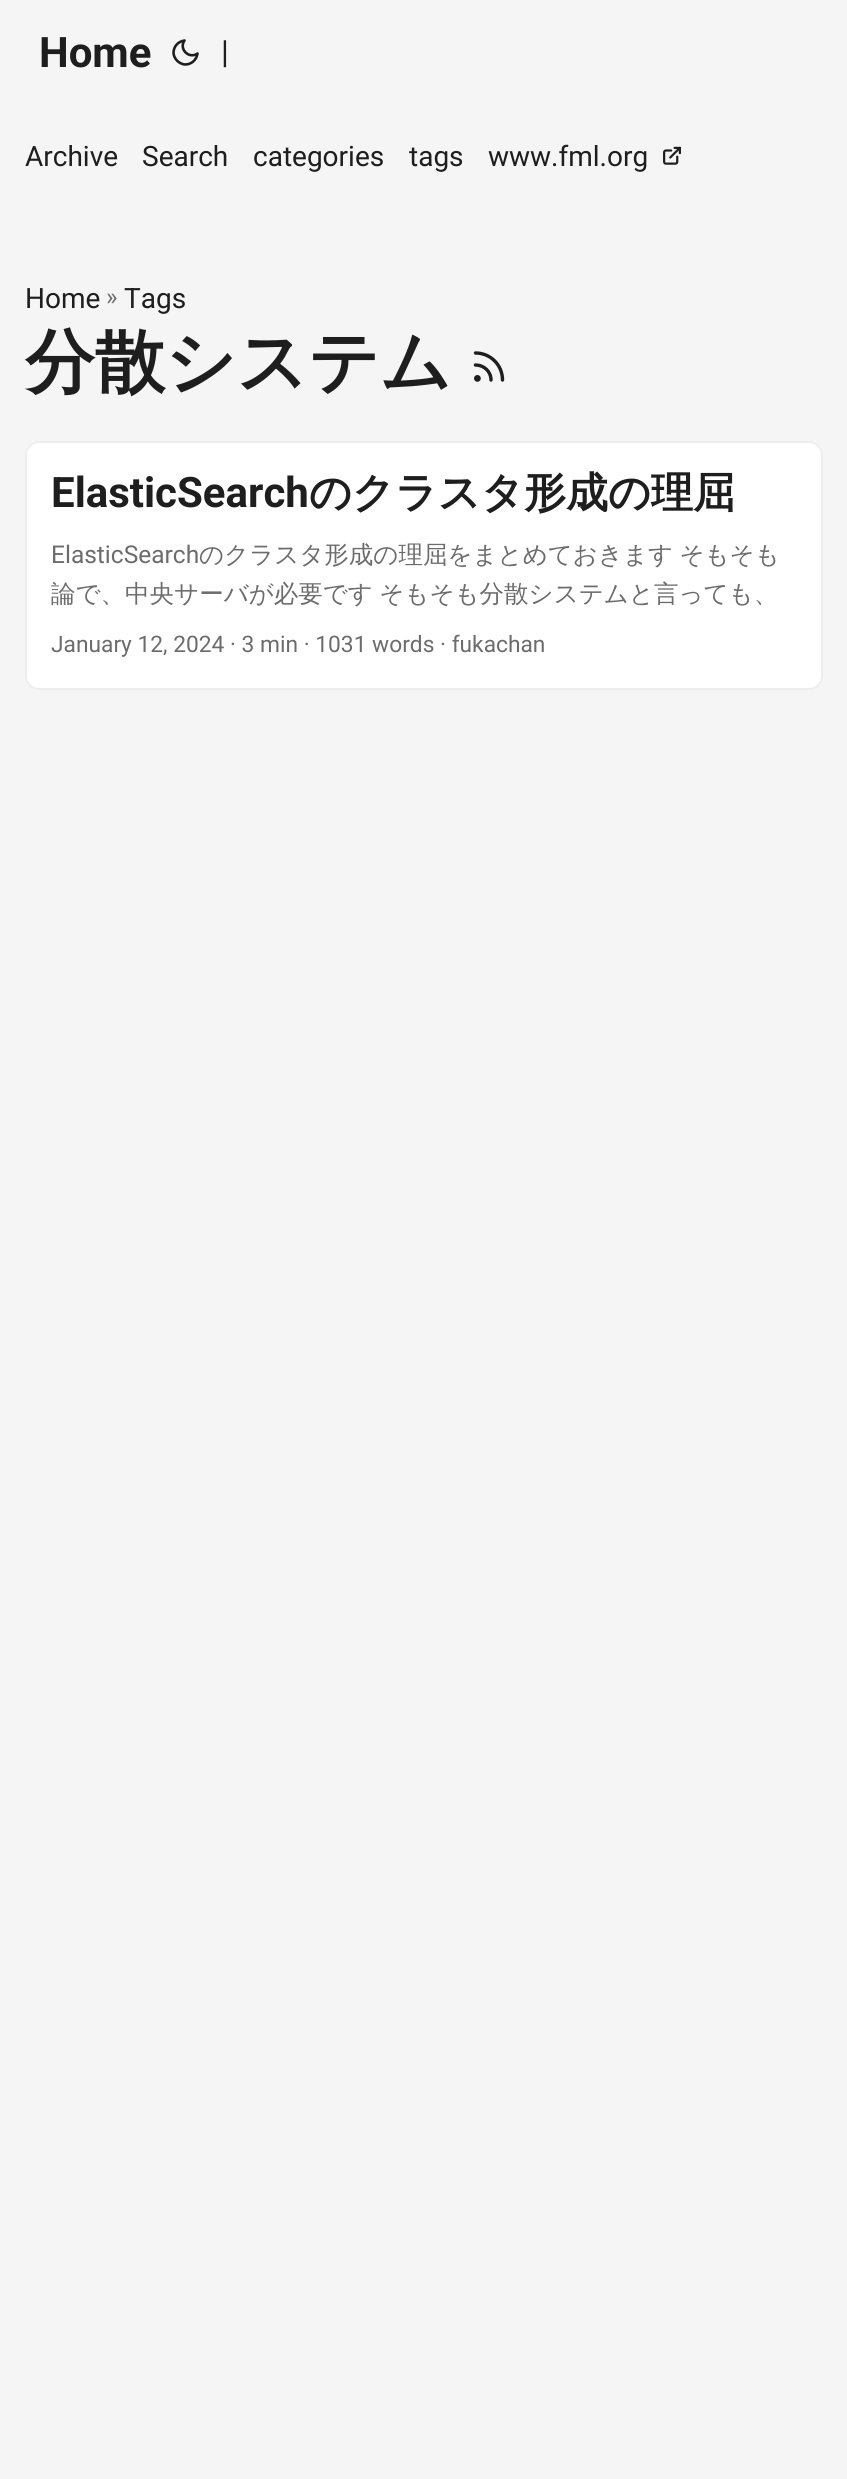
import math
import cairocffi as cairo

surface = cairo.ImageSurface(cairo.FORMAT_RGB24, 847, 2479)
ctx = cairo.Context(surface)
options = cairo.FontOptions()
options.set_hint_metrics(cairo.HINT_METRICS_OFF)
options.set_hint_style(cairo.HINT_STYLE_NONE)
ctx.set_font_options(options)
ctx.set_miter_limit(4)


def rgb(r, g, b):
    ctx.set_source_rgb(r / 255, g / 255, b / 255)


def face(family, size, italic, bold):
    ctx.select_font_face(family, cairo.FONT_SLANT_ITALIC if italic else cairo.FONT_SLANT_NORMAL, cairo.FONT_WEIGHT_BOLD if bold else cairo.FONT_WEIGHT_NORMAL)
    ctx.set_font_size(size)


def label(x, y, s):
    ctx.move_to(x, y)
    ctx.show_text(s)


def tracked(x, y, s, letter, word):
    ctx.move_to(x, y)
    for ch in s:
        ctx.show_text(ch)
        ctx.rel_move_to(letter + word * (ch == ' '), 0)


def rrect(x, y, w, h, r):
    ctx.new_sub_path()
    for i, (u, v) in enumerate([(x + w - r, y + h - r), (x + r, y + h - r), (x + r, y + r), (x + w - r, y + r)]):
        ctx.arc(u, v, r, i * math.pi / 2, (i + 1) * math.pi / 2)
    ctx.close_path()


def image(path, x, y, w, h):
    ctx.save()
    ctx.set_source_surface(cairo.ImageSurface.create_from_png(path), x, y)
    ctx.rectangle(x, y, w, h)
    ctx.fill()
    ctx.restore()


rgb(245, 245, 245)
ctx.paint()
face('Roboto', 42, 0, 1)
rgb(30, 30, 30)
label(39, 67, 'Home')
ctx.new_path()
ctx.move_to(197.5, 53.5)
ctx.curve_to(196.5, 60, 191.5, 64.5, 185, 64.5)
ctx.curve_to(179, 64, 174, 59, 173.5, 53)
ctx.curve_to(173.5, 46.5, 178, 41.5, 184.5, 40.5)
ctx.curve_to(178.5, 49, 189, 59.5, 197.5, 53.5)
ctx.close_path()
ctx.set_line_width(2.6)
ctx.set_line_cap(cairo.LINE_CAP_ROUND)
ctx.set_line_join(cairo.LINE_JOIN_ROUND)
ctx.stroke()
face('Roboto', 32, 0, 0)
label(221, 63, '|')
face('Roboto', 28, 0, 0)
label(25, 166, 'Archive')
label(142, 166, 'Search')
label(253, 166, 'categories')
label(409, 166, 'tags')
label(488, 166, 'www.fml.org')
image('image0.png', 663, 146, 18, 19)
label(25, 308, 'Home')
face('Roboto', 24.5, 0, 0)
rgb(108, 108, 108)
label(106, 305, '»')
face('Roboto', 28, 0, 0)
rgb(30, 30, 30)
label(124, 308, 'Tags')
face('WenQuanYi Zen Hei', 70, 0, 1)
label(25, 386, '分散システム')
ctx.new_path()
ctx.move_to(475.5, 365)
ctx.curve_to(484, 365, 491, 371.5, 491, 380)
ctx.move_to(475.5, 353)
ctx.curve_to(490.5, 353, 502.5, 365, 502.5, 380)
ctx.set_line_width(3.4)
ctx.stroke()
ctx.arc(477.4, 378.4, 1.7, 0, 2 * math.pi)
ctx.set_line_cap(cairo.LINE_CAP_BUTT)
ctx.set_line_join(cairo.LINE_JOIN_MITER)
ctx.stroke()
rgb(255, 255, 255)
rrect(26, 442, 796, 247, 13)
ctx.fill_preserve()
rgb(238, 238, 238)
ctx.set_line_width(2)
ctx.stroke()
face('Roboto', 42, 0, 1)
rgb(30, 30, 30)
label(51, 507, 'ElasticSearch')
face('WenQuanYi Zen Hei', 42, 0, 1)
label(309, 507, 'のクラスタ形成の理屈')
face('Roboto', 24.5, 0, 0)
rgb(108, 108, 108)
label(51, 563, 'ElasticSearch')
face('WenQuanYi Zen Hei Medium', 24.5, 0, 0)
tracked(199, 563, 'のクラスタ形成の理屈をまとめておきます そもそも', 0, -1)
tracked(51, 602, '論で、中央サーバが必要です そもそも分散システムと言っても、', 0, -1)
face('Roboto', 22.75, 0, 0)
label(51, 652, 'January 12, 2024 · 3 min · 1031 words · fukachan')
surface.write_to_png('render.png')
